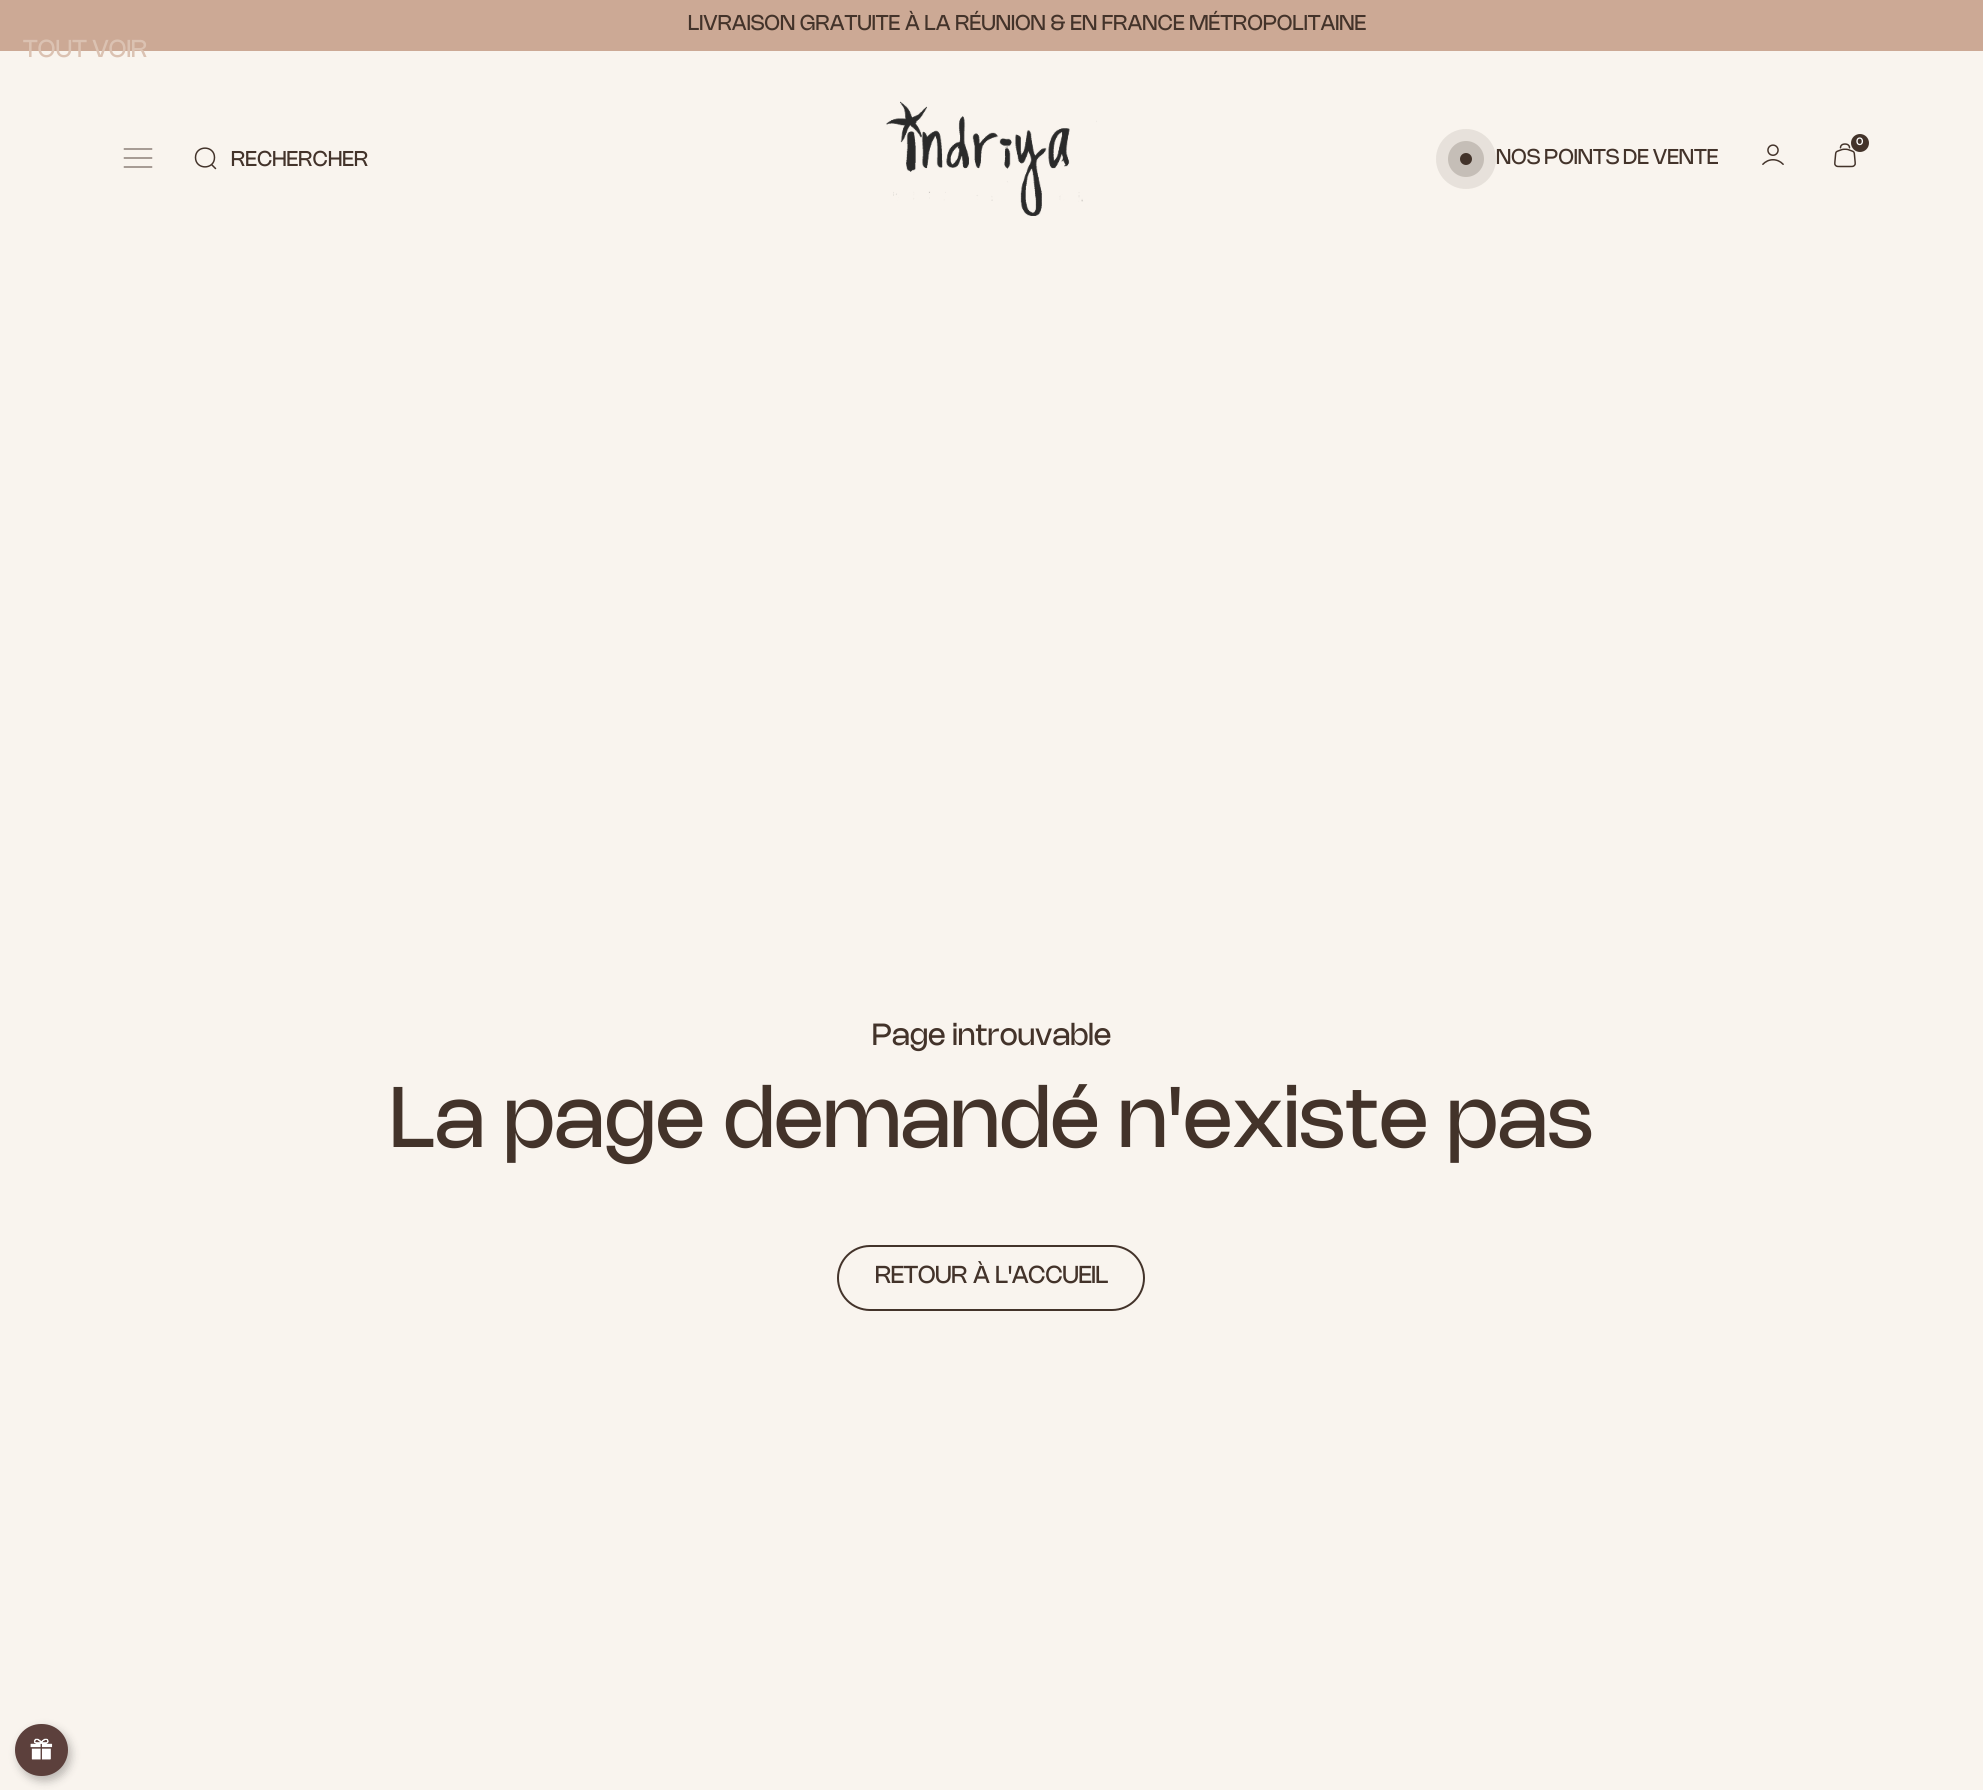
import math
import cairocffi as cairo

surface = cairo.ImageSurface(cairo.FORMAT_RGB24, 1983, 1790)
ctx = cairo.Context(surface)
options = cairo.FontOptions()
options.set_hint_metrics(cairo.HINT_METRICS_OFF)
options.set_hint_style(cairo.HINT_STYLE_NONE)
ctx.set_font_options(options)
ctx.set_miter_limit(4)


def rgb(r, g, b):
    ctx.set_source_rgb(r / 255, g / 255, b / 255)


def face(family, size, italic, bold):
    ctx.select_font_face(family, cairo.FONT_SLANT_ITALIC if italic else cairo.FONT_SLANT_NORMAL, cairo.FONT_WEIGHT_BOLD if bold else cairo.FONT_WEIGHT_NORMAL)
    ctx.set_font_size(size)


def label(x, y, s):
    ctx.move_to(x, y)
    ctx.show_text(s)


def tracked(x, y, s, letter, word):
    ctx.move_to(x, y)
    for ch in s:
        ctx.show_text(ch)
        ctx.rel_move_to(letter + word * (ch == ' '), 0)


def rect(x, y, w, h):
    ctx.rectangle(x, y, w, h)
    ctx.fill()


def rrect(x, y, w, h, r):
    ctx.new_sub_path()
    for i, (u, v) in enumerate([(x + w - r, y + h - r), (x + r, y + h - r), (x + r, y + r), (x + w - r, y + r)]):
        ctx.arc(u, v, r, i * math.pi / 2, (i + 1) * math.pi / 2)
    ctx.close_path()


def soft_shadow(x, y, w, h, r, blur, alpha):
    ctx.push_group_with_content(cairo.CONTENT_ALPHA)
    ctx.set_operator(cairo.OPERATOR_SOURCE)
    for i in range(15, -16, -2):
        e = blur * i / 6
        if min(w, h) + 2 * e > 0:
            ctx.set_source_rgba(0, 0, 0, alpha * math.erfc((i - 1) / 8.5) / 2)
            rrect(x - e, y - e, w + 2 * e, h + 2 * e, max(0, min(r + e + blur * .6, min(w, h) / 2 + e)))
            ctx.fill()
    ctx.mask(ctx.pop_group())


def image(path, x, y, w, h):
    ctx.save()
    ctx.set_source_surface(cairo.ImageSurface.create_from_png(path), x, y)
    ctx.rectangle(x, y, w, h)
    ctx.fill()
    ctx.restore()


rgb(249, 244, 238)
ctx.paint()
rgb(204, 169, 149)
rect(0, 0, 1983, 51)
face('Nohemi', 21, 0, 0)
rgb(67, 51, 42)
label(688, 30, 'LIVRAISON GRATUITE À LA RÉUNION & EN FRANCE MÉTROPOLITAINE')
face('Nohemi', 24, 0, 0)
rgb(219, 194, 178)
label(23, 57, 'TOUT VOIR')
ctx.new_path()
ctx.move_to(124.5, 158)
ctx.line_to(151.5, 158)
ctx.move_to(124.5, 149)
ctx.line_to(151.5, 149)
ctx.move_to(124.5, 167)
ctx.line_to(151.5, 167)
rgb(140, 128, 120)
ctx.set_line_width(1.5)
ctx.set_line_cap(cairo.LINE_CAP_SQUARE)
ctx.stroke()
ctx.new_path()
ctx.move_to(215.5, 168.5)
ctx.line_to(211.5, 164.5)
ctx.move_to(214.5, 157.5)
ctx.curve_to(214.5, 170, 195.5, 170, 195.5, 157.5)
ctx.curve_to(195.5, 145, 214.5, 145, 214.5, 157.5)
ctx.close_path()
rgb(67, 51, 42)
ctx.set_line_cap(cairo.LINE_CAP_ROUND)
ctx.set_line_join(cairo.LINE_JOIN_ROUND)
ctx.stroke()
face('Nohemi', 21, 0, 0)
label(231, 166, 'RECHERCHER')
image('image0.png', 886, 101, 211, 115)
image('image1.png', 1834, 143, 22, 25)
ctx.arc(1860, 143, 9, 0, 2 * math.pi)
ctx.fill()
face('Nohemi', 10, 0, 1)
rgb(255, 255, 255)
label(1856, 145, '0')
rgb(67, 51, 42)
ctx.new_path()
ctx.arc(1466, 159, 6, 0, 2 * math.pi)
ctx.fill()
ctx.set_source_rgba(0.263, 0.2, 0.165, 0.2)
ctx.arc(1466, 159, 18, 0, 2 * math.pi)
ctx.fill()
ctx.set_source_rgba(0.263, 0.2, 0.165, 0.1)
ctx.arc(1466, 159, 30, 0, 2 * math.pi)
ctx.fill()
face('Nohemi', 21, 0, 0)
rgb(67, 51, 42)
tracked(1496, 164, 'NOS POINTS DE VENTE', 0, -1)
image('image2.png', 1762, 144, 22, 21)
face('Nohemi', 30, 0, 0)
label(872, 1045, 'Page introuvable')
face('Nohemi', 84, 0, 0)
label(390, 1147, 'La page demandé n\'existe pas')
rrect(838, 1246, 306, 64, 32)
ctx.set_line_width(2)
ctx.set_line_cap(cairo.LINE_CAP_BUTT)
ctx.set_line_join(cairo.LINE_JOIN_MITER)
ctx.stroke()
face('Nohemi', 24, 0, 0)
tracked(875, 1283, 'RETOUR À L\'ACCUEIL', -0.5, 1)
rgb(0, 0, 0)
soft_shadow(18, 1728, 53, 53, 26.5, 4.5, 0.25)
rgb(92, 64, 60)
rrect(15, 1724, 53, 52, 26)
ctx.fill()
image('image3.png', 30, 1738, 23, 22)
surface.write_to_png('render.png')
